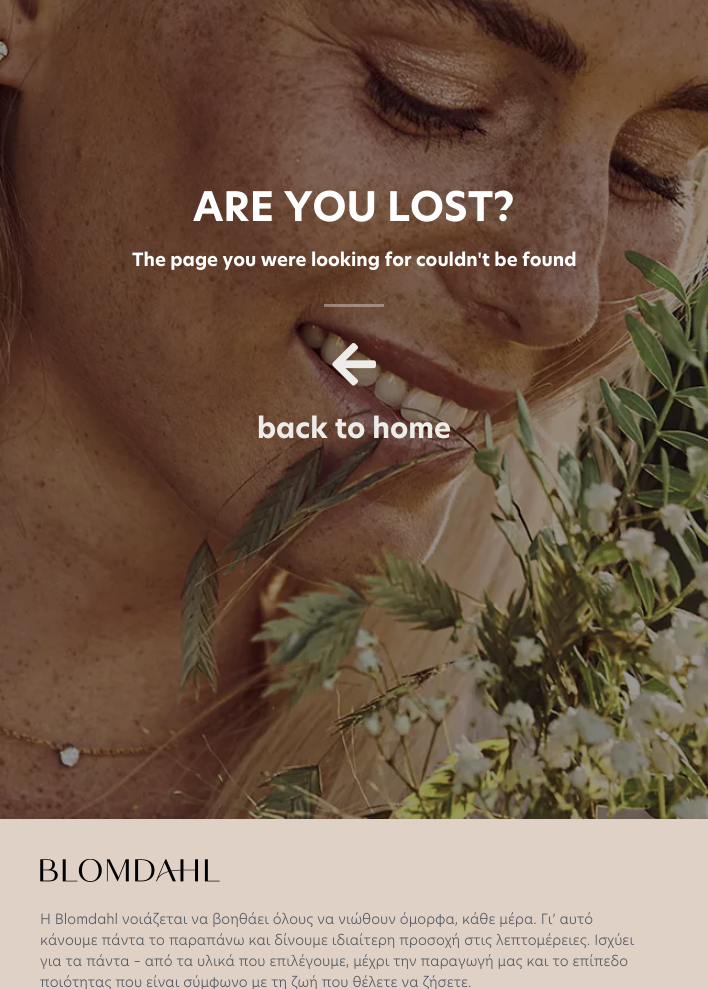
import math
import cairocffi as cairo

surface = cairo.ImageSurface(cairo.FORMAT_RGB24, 708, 989)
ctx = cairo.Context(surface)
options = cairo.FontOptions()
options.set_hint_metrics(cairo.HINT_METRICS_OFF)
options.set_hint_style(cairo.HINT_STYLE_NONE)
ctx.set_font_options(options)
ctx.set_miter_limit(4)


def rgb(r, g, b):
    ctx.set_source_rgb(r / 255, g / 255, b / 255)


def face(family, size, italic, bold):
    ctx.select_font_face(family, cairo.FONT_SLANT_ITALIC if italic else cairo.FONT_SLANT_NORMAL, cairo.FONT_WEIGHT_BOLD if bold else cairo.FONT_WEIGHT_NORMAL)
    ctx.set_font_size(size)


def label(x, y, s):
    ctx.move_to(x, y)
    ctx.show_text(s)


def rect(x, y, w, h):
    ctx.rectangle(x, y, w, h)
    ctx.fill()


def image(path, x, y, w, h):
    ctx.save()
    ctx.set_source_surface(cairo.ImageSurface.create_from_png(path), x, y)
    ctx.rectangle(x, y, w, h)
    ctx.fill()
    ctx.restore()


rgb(255, 255, 255)
ctx.paint()
image('image0.png', 0, 0, 708, 819)
face('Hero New', 40, 0, 1)
rgb(255, 255, 255)
label(193, 221, 'ARE YOU LOST?')
face('Hero New', 18, 0, 1)
label(132, 266, 'The page you were looking for couldn\'t be found')
ctx.set_source_rgba(1, 1, 1, 0.35)
rect(324, 304, 60, 3)
image('image1.png', 332, 343, 44, 43)
face('Hero New', 28, 0, 1)
rgb(238, 236, 232)
label(257, 438, 'back to home')
rgb(224, 209, 199)
rect(0, 819, 708, 170)
image('image2.png', 40, 859, 180, 23)
face('Hero New Light', 14, 0, 0)
rgb(84, 89, 95)
label(40, 924, 'Η Blomdahl νοιάζεται να βοηθάει όλους να νιώθουν όμορφα, κάθε μέρα. Γι’ αυτό')
label(40, 945, 'κάνουμε πάντα το παραπάνω και δίνουμε ιδιαίτερη προσοχή στις λεπτομέρειες. Ισχύει')
label(40, 966, 'για τα πάντα – από τα υλικά που επιλέγουμε, μέχρι την παραγωγή μας και το επίπεδο')
label(40, 987, 'ποιότητας που είναι σύμφωνο με τη ζωή που θέλετε να ζήσετε.')
surface.write_to_png('render.png')
